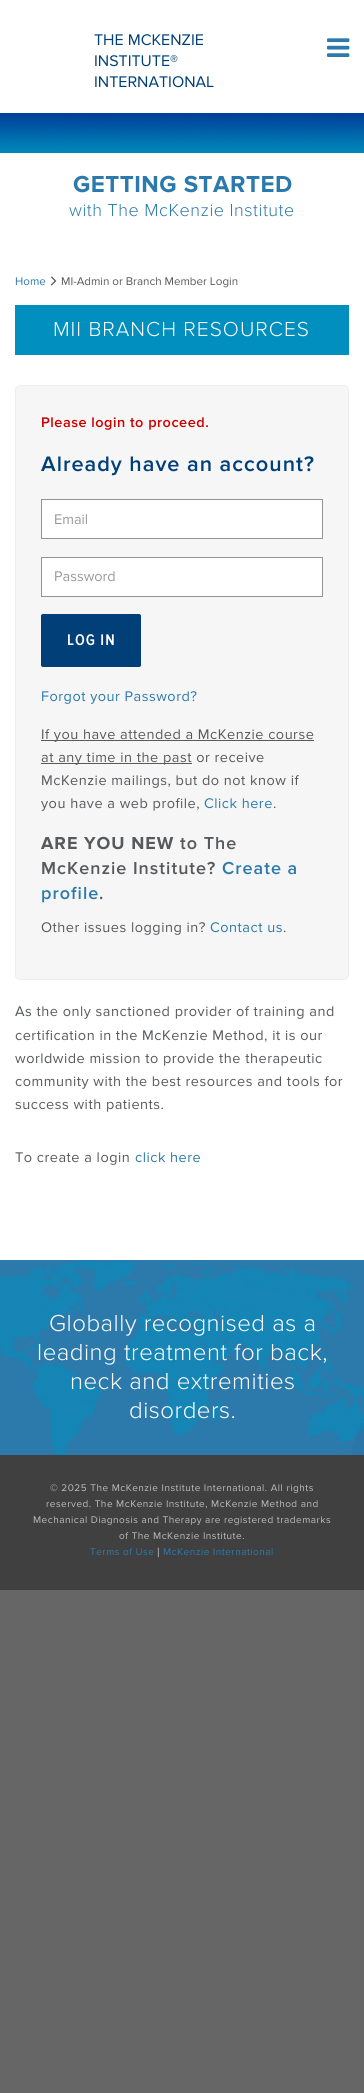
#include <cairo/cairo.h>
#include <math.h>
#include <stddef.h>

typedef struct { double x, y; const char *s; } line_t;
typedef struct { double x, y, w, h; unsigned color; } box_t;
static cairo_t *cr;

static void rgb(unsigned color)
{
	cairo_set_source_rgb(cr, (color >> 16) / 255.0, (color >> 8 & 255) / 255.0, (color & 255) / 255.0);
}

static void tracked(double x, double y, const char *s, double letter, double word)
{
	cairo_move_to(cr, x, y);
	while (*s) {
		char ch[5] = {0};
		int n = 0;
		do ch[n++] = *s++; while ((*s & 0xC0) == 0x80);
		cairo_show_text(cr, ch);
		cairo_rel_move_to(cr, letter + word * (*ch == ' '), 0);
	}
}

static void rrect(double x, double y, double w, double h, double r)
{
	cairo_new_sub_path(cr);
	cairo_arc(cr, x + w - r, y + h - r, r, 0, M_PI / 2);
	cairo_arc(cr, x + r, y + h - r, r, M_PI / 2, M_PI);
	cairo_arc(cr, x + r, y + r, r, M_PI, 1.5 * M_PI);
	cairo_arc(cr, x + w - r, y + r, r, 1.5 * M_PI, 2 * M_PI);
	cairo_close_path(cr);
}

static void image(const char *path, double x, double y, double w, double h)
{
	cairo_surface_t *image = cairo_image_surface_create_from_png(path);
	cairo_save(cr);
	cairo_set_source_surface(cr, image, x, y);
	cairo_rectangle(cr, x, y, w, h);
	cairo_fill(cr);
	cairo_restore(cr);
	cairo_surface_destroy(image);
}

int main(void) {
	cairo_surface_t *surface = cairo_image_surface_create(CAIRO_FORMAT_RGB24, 364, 2093);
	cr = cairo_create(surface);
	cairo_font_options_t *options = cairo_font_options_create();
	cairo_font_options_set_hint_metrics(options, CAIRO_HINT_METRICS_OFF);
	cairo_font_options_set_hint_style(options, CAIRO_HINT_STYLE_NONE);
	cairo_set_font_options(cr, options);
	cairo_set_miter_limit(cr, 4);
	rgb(0x666666);
	cairo_paint(cr);
	rgb(0xffffff);
	cairo_rectangle(cr, 0, 0, 364, 113);
	cairo_fill(cr);
	image("img/1.png", 327, 38, 23, 19);
	cairo_rectangle(cr, 0, 153, 364, 1107);
	cairo_fill(cr);
	image("img/2.png", 0, 113, 364, 40);
	image("img/3.png", 50, 276, 7, 10);
	rgb(0x008fbe);
	cairo_rectangle(cr, 15, 305, 334, 50);
	cairo_fill(cr);
	rgb(0xf6f6f7);
	rrect(15.5, 385.5, 333, 594, 4.5);
	cairo_fill_preserve(cr);
	rgb(0xedeeef);
	cairo_set_line_width(cr, 1);
	cairo_stroke(cr);
	rgb(0xffffff);
	cairo_rectangle(cr, 41.5, 499.5, 281, 39);
	cairo_fill_preserve(cr);
	rgb(0x929497);
	cairo_stroke(cr);
	rgb(0xffffff);
	cairo_rectangle(cr, 41.5, 557.5, 281, 39);
	cairo_fill_preserve(cr);
	rgb(0x929497);
	cairo_stroke(cr);
	rgb(0x003f77);
	rrect(41.5, 614.5, 99, 52, 1.5);
	cairo_fill_preserve(cr);
	cairo_stroke(cr);
	{
		static const box_t items[] = {
			{41, 740, 273, 1, 0x58595b},
			{41, 763, 151, 1, 0x58595b},
			{0, 1455, 364, 135, 0x404041},
		};
		for (size_t i = 0; i < sizeof items / sizeof *items; i++) {
			rgb(items[i].color);
			cairo_rectangle(cr, items[i].x, items[i].y, items[i].w, items[i].h);
			cairo_fill(cr);
		}
	}
	image("img/4.png", 0, 1260, 364, 195);
	cairo_select_font_face(cr, "Proxima Nova", CAIRO_FONT_SLANT_NORMAL, CAIRO_FONT_WEIGHT_NORMAL);
	cairo_set_font_size(cr, 16);
	rgb(0x003f77);
	{
		static const line_t items[] = {
			{94, 45, "THE MCKENZIE"},
			{94, 66, "INSTITUTE®"},
			{94, 87, "INTERNATIONAL"},
		};
		for (size_t i = 0; i < sizeof items / sizeof *items; i++) {
			cairo_move_to(cr, items[i].x, items[i].y);
			cairo_show_text(cr, items[i].s);
		}
	}
	cairo_select_font_face(cr, "Proxima Nova", CAIRO_FONT_SLANT_NORMAL, CAIRO_FONT_WEIGHT_BOLD);
	cairo_set_font_size(cr, 24);
	rgb(0x2c7aab);
	tracked(73, 192, "GETTING STARTED", 0.5, 0);
	cairo_select_font_face(cr, "Proxima Nova Light", CAIRO_FONT_SLANT_NORMAL, CAIRO_FONT_WEIGHT_NORMAL);
	cairo_set_font_size(cr, 18);
	tracked(69, 216, "with The McKenzie Institute", 0.5, 0);
	cairo_select_font_face(cr, "Proxima Nova", CAIRO_FONT_SLANT_NORMAL, CAIRO_FONT_WEIGHT_NORMAL);
	cairo_set_font_size(cr, 11.6);
	cairo_move_to(cr, 15, 285);
	cairo_show_text(cr, "Home");
	rgb(0x58595b);
	cairo_move_to(cr, 61, 285);
	cairo_show_text(cr, "MI-Admin or Branch Member Login");
	cairo_select_font_face(cr, "Proxima Nova Light", CAIRO_FONT_SLANT_NORMAL, CAIRO_FONT_WEIGHT_NORMAL);
	cairo_set_font_size(cr, 21);
	rgb(0xffffff);
	tracked(53, 336, "MII BRANCH RESOURCES", 1, 0);
	cairo_select_font_face(cr, "Proxima Nova SemiBold", CAIRO_FONT_SLANT_NORMAL, CAIRO_FONT_WEIGHT_NORMAL);
	cairo_set_font_size(cr, 14.5);
	rgb(0xcc0000);
	tracked(41, 427, "Please login to proceed.", 0.5, 0);
	cairo_set_font_size(cr, 21.75);
	rgb(0x003f77);
	tracked(41, 471, "Already have an account?", 1, 0);
	cairo_select_font_face(cr, "Proxima Nova", CAIRO_FONT_SLANT_NORMAL, CAIRO_FONT_WEIGHT_NORMAL);
	cairo_set_font_size(cr, 14.5);
	rgb(0x999999);
	cairo_move_to(cr, 54, 524);
	cairo_show_text(cr, "Email");
	cairo_move_to(cr, 54, 581);
	cairo_show_text(cr, "Password");
	cairo_select_font_face(cr, "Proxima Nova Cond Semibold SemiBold", CAIRO_FONT_SLANT_NORMAL, CAIRO_FONT_WEIGHT_NORMAL);
	cairo_set_font_size(cr, 16);
	rgb(0xffffff);
	tracked(67, 645, "LOG IN", 1, 0);
	cairo_select_font_face(cr, "Proxima Nova", CAIRO_FONT_SLANT_NORMAL, CAIRO_FONT_WEIGHT_NORMAL);
	cairo_set_font_size(cr, 14.5);
	rgb(0x2c7aab);
	tracked(41, 701, "Forgot your Password?", 0.5, 0);
	rgb(0x58595b);
	{
		static const line_t items[] = {
			{41, 739, "If you have attended a McKenzie course"},
			{41, 762, "at any time in the past or receive"},
			{41, 785, "McKenzie mailings, but do not know if"},
			{41, 808, "you have a web profile,"},
		};
		for (size_t i = 0; i < sizeof items / sizeof *items; i++) {
			tracked(items[i].x, items[i].y, items[i].s, 0.5, 0);
		}
	}
	rgb(0x2c7aab);
	tracked(204, 808, "Click here", 0.5, 0);
	rgb(0x58595b);
	tracked(273, 808, ".", 0.5, 0);
	cairo_select_font_face(cr, "Proxima Nova", CAIRO_FONT_SLANT_NORMAL, CAIRO_FONT_WEIGHT_BOLD);
	cairo_set_font_size(cr, 18);
	tracked(41, 849, "ARE YOU NEW", 1, 0);
	cairo_select_font_face(cr, "Proxima Nova SemiBold", CAIRO_FONT_SLANT_NORMAL, CAIRO_FONT_WEIGHT_NORMAL);
	tracked(180, 849, "to The", 1, 0);
	tracked(41, 874, "McKenzie Institute?", 1, 0);
	rgb(0x2c7aab);
	tracked(222, 874, "Create a", 1, 0);
	tracked(41, 899, "profile", 1, 0);
	rgb(0x58595b);
	tracked(99, 899, ".", 1, 0);
	cairo_select_font_face(cr, "Proxima Nova", CAIRO_FONT_SLANT_NORMAL, CAIRO_FONT_WEIGHT_NORMAL);
	cairo_set_font_size(cr, 14.5);
	tracked(41, 932, "Other issues logging in?", 0.5, 0);
	rgb(0x2c7aab);
	tracked(210, 932, "Contact us", 0.5, 0);
	rgb(0x58595b);
	{
		static const line_t items[] = {
			{283, 932, "."},
			{15, 1016, "As the only sanctioned provider of training and"},
			{15, 1040, "certification in the McKenzie Method, it is our"},
			{15, 1063, "worldwide mission to provide the therapeutic"},
			{15, 1086, "community with the best resources and tools for"},
			{15, 1109, "success with patients."},
			{15, 1162, "To create a login"},
		};
		for (size_t i = 0; i < sizeof items / sizeof *items; i++) {
			tracked(items[i].x, items[i].y, items[i].s, 0.5, 0);
		}
	}
	rgb(0x2c7aab);
	tracked(135, 1162, "click here", 0.5, 0);
	cairo_select_font_face(cr, "Proxima Nova Light", CAIRO_FONT_SLANT_NORMAL, CAIRO_FONT_WEIGHT_NORMAL);
	cairo_set_font_size(cr, 24);
	rgb(0xffffff);
	{
		static const line_t items[] = {
			{49, 1331, "Globally recognised as a"},
			{37, 1360, "leading treatment for back,"},
			{70, 1389, "neck and extremities"},
			{129, 1418, "disorders."},
		};
		for (size_t i = 0; i < sizeof items / sizeof *items; i++) {
			tracked(items[i].x, items[i].y, items[i].s, 0.5, 0);
		}
	}
	cairo_select_font_face(cr, "Proxima Nova", CAIRO_FONT_SLANT_NORMAL, CAIRO_FONT_WEIGHT_NORMAL);
	cairo_set_font_size(cr, 10);
	rgb(0xbbbcbe);
	{
		static const line_t items[] = {
			{50, 1491, "© 2025 The McKenzie Institute International. All rights"},
			{46, 1507, "reserved. The McKenzie Institute, McKenzie Method and"},
			{33, 1523, "Mechanical Diagnosis and Therapy are registered trademarks"},
			{119, 1539, "of The McKenzie Institute."},
		};
		for (size_t i = 0; i < sizeof items / sizeof *items; i++) {
			tracked(items[i].x, items[i].y, items[i].s, 0.5, 0);
		}
	}
	rgb(0x2c7aab);
	tracked(90, 1555, "Terms of Use", 0.5, 0);
	cairo_select_font_face(cr, "Liberation Sans", CAIRO_FONT_SLANT_NORMAL, CAIRO_FONT_WEIGHT_NORMAL);
	rgb(0xbbbcbe);
	tracked(157, 1555, "|", 0.5, 0);
	cairo_select_font_face(cr, "Proxima Nova", CAIRO_FONT_SLANT_NORMAL, CAIRO_FONT_WEIGHT_NORMAL);
	rgb(0x2c7aab);
	tracked(163, 1555, "McKenzie International", 0.5, 0);
	cairo_surface_write_to_png(surface, "page.png");
	cairo_font_options_destroy(options);
	cairo_destroy(cr);
	cairo_surface_destroy(surface);
	return 0;
}
